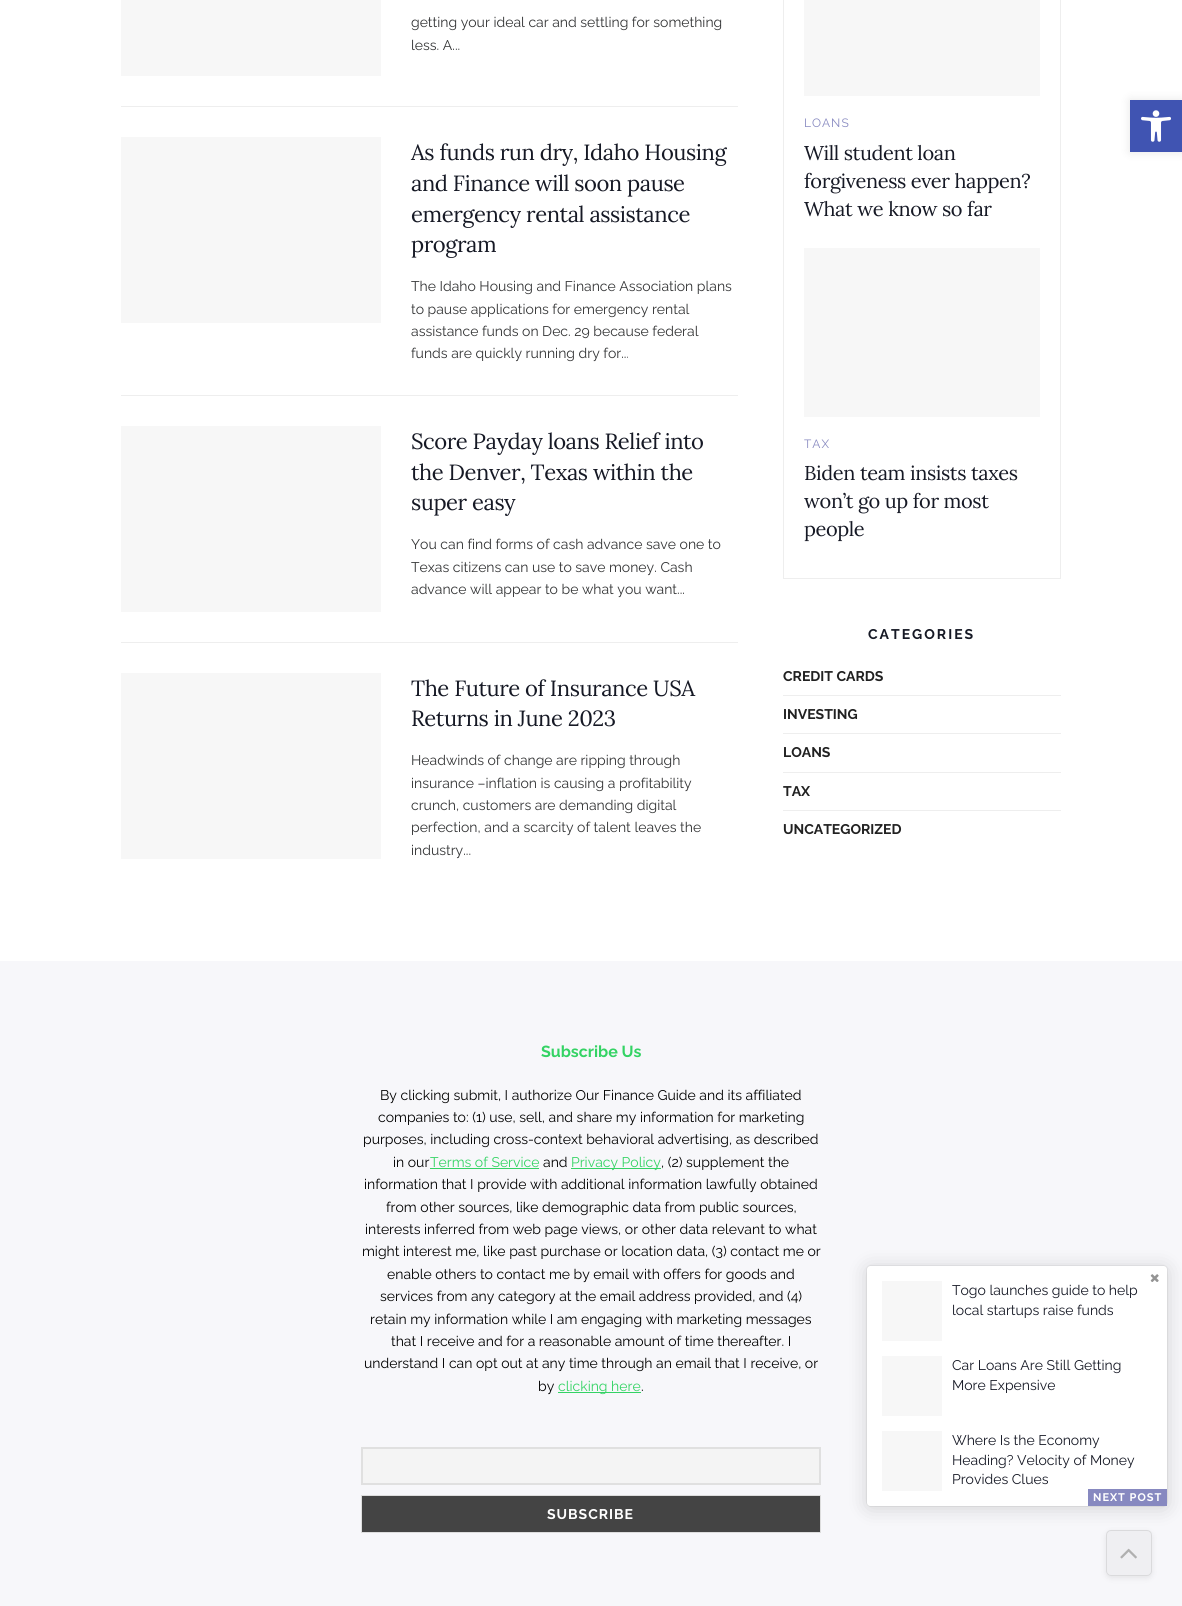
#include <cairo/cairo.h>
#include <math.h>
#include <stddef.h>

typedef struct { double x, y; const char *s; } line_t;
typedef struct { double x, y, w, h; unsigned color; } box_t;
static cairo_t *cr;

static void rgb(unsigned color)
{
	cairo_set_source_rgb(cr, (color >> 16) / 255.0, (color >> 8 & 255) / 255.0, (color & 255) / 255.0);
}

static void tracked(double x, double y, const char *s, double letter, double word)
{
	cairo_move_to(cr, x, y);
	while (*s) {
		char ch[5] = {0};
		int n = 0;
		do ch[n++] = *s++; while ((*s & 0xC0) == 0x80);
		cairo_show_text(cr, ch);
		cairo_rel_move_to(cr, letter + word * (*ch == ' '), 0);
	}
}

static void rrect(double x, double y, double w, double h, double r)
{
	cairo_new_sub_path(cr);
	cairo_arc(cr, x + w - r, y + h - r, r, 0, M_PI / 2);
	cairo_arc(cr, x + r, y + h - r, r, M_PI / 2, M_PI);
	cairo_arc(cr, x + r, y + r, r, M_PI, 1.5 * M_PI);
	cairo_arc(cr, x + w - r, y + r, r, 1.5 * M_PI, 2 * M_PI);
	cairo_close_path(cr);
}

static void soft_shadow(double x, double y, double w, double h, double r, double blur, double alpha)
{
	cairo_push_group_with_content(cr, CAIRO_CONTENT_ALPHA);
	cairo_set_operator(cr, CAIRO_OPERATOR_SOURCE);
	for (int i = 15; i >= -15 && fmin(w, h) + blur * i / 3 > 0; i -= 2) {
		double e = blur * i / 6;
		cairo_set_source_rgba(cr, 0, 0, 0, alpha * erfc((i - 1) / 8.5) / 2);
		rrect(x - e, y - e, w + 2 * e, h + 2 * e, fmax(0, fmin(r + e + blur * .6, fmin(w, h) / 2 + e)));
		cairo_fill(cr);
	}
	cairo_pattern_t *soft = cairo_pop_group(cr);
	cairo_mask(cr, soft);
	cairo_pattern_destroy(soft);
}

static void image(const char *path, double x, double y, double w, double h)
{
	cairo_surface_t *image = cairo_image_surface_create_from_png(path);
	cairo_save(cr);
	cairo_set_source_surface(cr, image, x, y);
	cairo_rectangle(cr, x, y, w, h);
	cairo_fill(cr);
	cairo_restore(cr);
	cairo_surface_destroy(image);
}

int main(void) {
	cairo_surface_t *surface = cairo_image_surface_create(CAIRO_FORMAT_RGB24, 1182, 1606);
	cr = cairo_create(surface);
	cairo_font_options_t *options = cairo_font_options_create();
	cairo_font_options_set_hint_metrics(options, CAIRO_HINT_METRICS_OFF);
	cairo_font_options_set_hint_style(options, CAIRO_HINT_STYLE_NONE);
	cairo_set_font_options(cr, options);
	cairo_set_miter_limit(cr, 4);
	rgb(0xffffff);
	cairo_paint(cr);
	{
		static const box_t items[] = {
			{121, 0, 260, 76, 0xf7f7f7},
			{121, 106, 617, 1, 0xeeeeee},
			{121, 137, 260, 186, 0xf7f7f7},
			{121, 395, 617, 1, 0xeeeeee},
			{121, 426, 260, 186, 0xf7f7f7},
			{121, 642, 617, 1, 0xeeeeee},
			{121, 673, 260, 186, 0xf7f7f7},
			{0, 961, 1182, 645, 0xf7f7fa},
		};
		for (size_t i = 0; i < sizeof items / sizeof *items; i++) {
			rgb(items[i].color);
			cairo_rectangle(cr, items[i].x, items[i].y, items[i].w, items[i].h);
			cairo_fill(cr);
		}
	}
	rgb(0x000000);
	soft_shadow(867, 1268, 300, 240, 3, 10, 0.15);
	soft_shadow(867, 1266, 300, 240, 3, 0.5, 0.2);
	rgb(0xffffff);
	rrect(867, 1266, 300, 240, 3);
	cairo_fill(cr);
	image("img/1.png", 1150, 1274, 9, 8);
	{
		static const box_t items[] = {
			{882, 1281, 60, 60, 0xf7f7f7},
			{882, 1356, 60, 60, 0xf7f7f7},
			{882, 1431, 60, 60, 0xf7f7f7},
			{1088, 1489, 79, 17, 0x8789c0},
		};
		for (size_t i = 0; i < sizeof items / sizeof *items; i++) {
			rgb(items[i].color);
			cairo_rectangle(cr, items[i].x, items[i].y, items[i].w, items[i].h);
			cairo_fill(cr);
		}
	}
	cairo_rectangle(cr, 783.5, -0.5, 277, 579);
	rgb(0xeeeeee);
	cairo_set_line_width(cr, 1);
	cairo_stroke(cr);
	{
		static const box_t items[] = {
			{804, 0, 236, 96, 0xf7f7f7},
			{804, 248, 236, 169, 0xf7f7f7},
			{783, 695, 278, 1, 0xeeeeee},
			{783, 733, 278, 1, 0xeeeeee},
			{783, 772, 278, 1, 0xeeeeee},
			{783, 810, 278, 1, 0xeeeeee},
			{430, 1168, 109, 1, 0x34d364},
			{571, 1168, 90, 1, 0x34d364},
			{558, 1392, 83, 1, 0x34d364},
		};
		for (size_t i = 0; i < sizeof items / sizeof *items; i++) {
			rgb(items[i].color);
			cairo_rectangle(cr, items[i].x, items[i].y, items[i].w, items[i].h);
			cairo_fill(cr);
		}
	}
	rgb(0xf4f4f4);
	cairo_rectangle(cr, 362, 1448, 458, 36);
	cairo_fill_preserve(cr);
	rgb(0xe0e0e0);
	cairo_set_line_width(cr, 2);
	cairo_stroke(cr);
	rgb(0x444444);
	cairo_rectangle(cr, 361.5, 1495.5, 459, 37);
	cairo_fill_preserve(cr);
	rgb(0xdddddd);
	cairo_set_line_width(cr, 1);
	cairo_stroke(cr);
	cairo_save(cr);
	cairo_set_fill_rule(cr, CAIRO_FILL_RULE_EVEN_ODD);
	cairo_new_path(cr);
	cairo_move_to(cr, 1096, 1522);
	cairo_line_to(cr, 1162, 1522);
	cairo_line_to(cr, 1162, 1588);
	cairo_line_to(cr, 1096, 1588);
	cairo_close_path(cr);
	cairo_move_to(cr, 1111, 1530);
	cairo_line_to(cr, 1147, 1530);
	cairo_curve_to(cr, 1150, 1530, 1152, 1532, 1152, 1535);
	cairo_line_to(cr, 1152, 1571);
	cairo_curve_to(cr, 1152, 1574, 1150, 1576, 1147, 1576);
	cairo_line_to(cr, 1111, 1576);
	cairo_curve_to(cr, 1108, 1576, 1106, 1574, 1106, 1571);
	cairo_line_to(cr, 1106, 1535);
	cairo_curve_to(cr, 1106, 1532, 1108, 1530, 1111, 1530);
	cairo_close_path(cr);
	cairo_clip(cr);
	rgb(0x313132);
	soft_shadow(1106, 1532, 46, 46, 5, 3, 0.1);
	cairo_restore(cr);
	cairo_set_source_rgba(cr, 0.761, 0.761, 0.765, 0.15);
	rrect(1106, 1530, 46, 46, 5);
	cairo_fill(cr);
	rrect(1106.5, 1530.5, 45, 45, 4.5);
	cairo_set_source_rgba(cr, 0.192, 0.192, 0.196, 0.11);
	cairo_stroke(cr);
	image("img/2.png", 1120, 1548, 17, 11);
	rgb(0x000000);
	soft_shadow(1130, 100, 52, 52, 0, 5, 0.1);
	rgb(0x4054b2);
	cairo_rectangle(cr, 1130, 100, 52, 52);
	cairo_fill(cr);
	image("img/3.png", 1141, 110, 30, 32);
	cairo_select_font_face(cr, "Raleway", CAIRO_FONT_SLANT_NORMAL, CAIRO_FONT_WEIGHT_NORMAL);
	cairo_set_font_size(cr, 14);
	rgb(0x343536);
	cairo_move_to(cr, 411, 27);
	cairo_show_text(cr, "getting your ideal car and settling for something");
	cairo_move_to(cr, 411, 50);
	cairo_show_text(cr, "less. A...");
	cairo_select_font_face(cr, "Lora", CAIRO_FONT_SLANT_NORMAL, CAIRO_FONT_WEIGHT_NORMAL);
	cairo_set_font_size(cr, 22);
	rgb(0x161925);
	{
		static const line_t items[] = {
			{411, 160, "As funds run dry, Idaho Housing"},
			{411, 191, "and Finance will soon pause"},
			{411, 222, "emergency rental assistance"},
			{411, 252, "program"},
		};
		for (size_t i = 0; i < sizeof items / sizeof *items; i++) {
			tracked(items[i].x, items[i].y, items[i].s, -0.45, 0);
		}
	}
	cairo_select_font_face(cr, "Raleway", CAIRO_FONT_SLANT_NORMAL, CAIRO_FONT_WEIGHT_NORMAL);
	cairo_set_font_size(cr, 14);
	rgb(0x343536);
	{
		static const line_t items[] = {
			{411, 291, "The Idaho Housing and Finance Association plans"},
			{411, 314, "to pause applications for emergency rental"},
			{411, 336, "assistance funds on Dec. 29 because federal"},
			{411, 358, "funds are quickly running dry for..."},
		};
		for (size_t i = 0; i < sizeof items / sizeof *items; i++) {
			cairo_move_to(cr, items[i].x, items[i].y);
			cairo_show_text(cr, items[i].s);
		}
	}
	cairo_select_font_face(cr, "Lora", CAIRO_FONT_SLANT_NORMAL, CAIRO_FONT_WEIGHT_NORMAL);
	cairo_set_font_size(cr, 22);
	rgb(0x161925);
	{
		static const line_t items[] = {
			{411, 449, "Score Payday loans Relief into"},
			{411, 480, "the Denver, Texas within the"},
			{411, 510, "super easy"},
		};
		for (size_t i = 0; i < sizeof items / sizeof *items; i++) {
			tracked(items[i].x, items[i].y, items[i].s, -0.45, 0);
		}
	}
	cairo_select_font_face(cr, "Raleway", CAIRO_FONT_SLANT_NORMAL, CAIRO_FONT_WEIGHT_NORMAL);
	cairo_set_font_size(cr, 14);
	rgb(0x343536);
	{
		static const line_t items[] = {
			{411, 549, "You can find forms of cash advance save one to"},
			{411, 572, "Texas citizens can use to save money. Cash"},
			{411, 594, "advance will appear to be what you want..."},
		};
		for (size_t i = 0; i < sizeof items / sizeof *items; i++) {
			cairo_move_to(cr, items[i].x, items[i].y);
			cairo_show_text(cr, items[i].s);
		}
	}
	cairo_select_font_face(cr, "Lora", CAIRO_FONT_SLANT_NORMAL, CAIRO_FONT_WEIGHT_NORMAL);
	cairo_set_font_size(cr, 22);
	rgb(0x161925);
	tracked(411, 696, "The Future of Insurance USA", -0.45, 0);
	tracked(411, 726, "Returns in June 2023", -0.45, 0);
	cairo_select_font_face(cr, "Raleway", CAIRO_FONT_SLANT_NORMAL, CAIRO_FONT_WEIGHT_NORMAL);
	cairo_set_font_size(cr, 14);
	rgb(0x343536);
	{
		static const line_t items[] = {
			{411, 765, "Headwinds of change are ripping through"},
			{411, 788, "insurance –inflation is causing a profitability"},
			{411, 810, "crunch, customers are demanding digital"},
			{411, 832, "perfection, and a scarcity of talent leaves the"},
			{411, 855, "industry..."},
		};
		for (size_t i = 0; i < sizeof items / sizeof *items; i++) {
			cairo_move_to(cr, items[i].x, items[i].y);
			cairo_show_text(cr, items[i].s);
		}
	}
	rgb(0x161925);
	{
		static const line_t items[] = {
			{952, 1295, "Togo launches guide to help"},
			{952, 1315, "local startups raise funds"},
			{952, 1370, "Car Loans Are Still Getting"},
			{952, 1390, "More Expensive"},
			{952, 1445, "Where Is the Economy"},
			{952, 1465, "Heading? Velocity of Money"},
			{952, 1484, "Provides Clues"},
		};
		for (size_t i = 0; i < sizeof items / sizeof *items; i++) {
			cairo_move_to(cr, items[i].x, items[i].y);
			cairo_show_text(cr, items[i].s);
		}
	}
	cairo_select_font_face(cr, "Raleway", CAIRO_FONT_SLANT_NORMAL, CAIRO_FONT_WEIGHT_BOLD);
	cairo_set_font_size(cr, 11);
	rgb(0xffffff);
	tracked(1093, 1501, "NEXT POST", 1, 0);
	cairo_select_font_face(cr, "Raleway", CAIRO_FONT_SLANT_NORMAL, CAIRO_FONT_WEIGHT_NORMAL);
	cairo_set_font_size(cr, 12);
	rgb(0x8789c0);
	tracked(804, 127, "LOANS", 1, 0);
	cairo_select_font_face(cr, "Lora", CAIRO_FONT_SLANT_NORMAL, CAIRO_FONT_WEIGHT_NORMAL);
	cairo_set_font_size(cr, 20);
	rgb(0x161925);
	{
		static const line_t items[] = {
			{804, 160, "Will student loan"},
			{804, 188, "forgiveness ever happen?"},
			{804, 216, "What we know so far"},
		};
		for (size_t i = 0; i < sizeof items / sizeof *items; i++) {
			tracked(items[i].x, items[i].y, items[i].s, -0.4, 0);
		}
	}
	cairo_select_font_face(cr, "Raleway", CAIRO_FONT_SLANT_NORMAL, CAIRO_FONT_WEIGHT_NORMAL);
	cairo_set_font_size(cr, 12);
	rgb(0x8789c0);
	tracked(804, 448, "TAX", 1, 0);
	cairo_select_font_face(cr, "Lora", CAIRO_FONT_SLANT_NORMAL, CAIRO_FONT_WEIGHT_NORMAL);
	cairo_set_font_size(cr, 20);
	rgb(0x161925);
	{
		static const line_t items[] = {
			{804, 480, "Biden team insists taxes"},
			{804, 508, "won’t go up for most"},
			{804, 536, "people"},
		};
		for (size_t i = 0; i < sizeof items / sizeof *items; i++) {
			tracked(items[i].x, items[i].y, items[i].s, -0.4, 0);
		}
	}
	cairo_select_font_face(cr, "Raleway", CAIRO_FONT_SLANT_NORMAL, CAIRO_FONT_WEIGHT_BOLD);
	cairo_set_font_size(cr, 14);
	tracked(868, 639, "CATEGORIES", 2, 0);
	rgb(0x212121);
	{
		static const line_t items[] = {
			{783, 681, "CREDIT CARDS"},
			{783, 719, "INVESTING"},
			{783, 757, "LOANS"},
			{783, 796, "TAX"},
			{783, 834, "UNCATEGORIZED"},
		};
		for (size_t i = 0; i < sizeof items / sizeof *items; i++) {
			cairo_move_to(cr, items[i].x, items[i].y);
			cairo_show_text(cr, items[i].s);
		}
	}
	cairo_set_font_size(cr, 16);
	rgb(0x34d364);
	cairo_move_to(cr, 541, 1057);
	cairo_show_text(cr, "Subscribe Us");
	cairo_select_font_face(cr, "Raleway", CAIRO_FONT_SLANT_NORMAL, CAIRO_FONT_WEIGHT_NORMAL);
	cairo_set_font_size(cr, 14);
	rgb(0x000000);
	{
		static const line_t items[] = {
			{380, 1100, "By clicking submit, I authorize Our Finance Guide and its affiliated"},
			{378, 1122, "companies to: (1) use, sell, and share my information for marketing"},
			{363, 1144, "purposes, including cross-context behavioral advertising, as described"},
			{393, 1167, "in our"},
		};
		for (size_t i = 0; i < sizeof items / sizeof *items; i++) {
			cairo_move_to(cr, items[i].x, items[i].y);
			cairo_show_text(cr, items[i].s);
		}
	}
	rgb(0x34d364);
	cairo_move_to(cr, 430, 1167);
	cairo_show_text(cr, "Terms of Service");
	rgb(0x000000);
	cairo_move_to(cr, 543, 1167);
	cairo_show_text(cr, "and");
	rgb(0x34d364);
	cairo_move_to(cr, 571, 1167);
	cairo_show_text(cr, "Privacy Policy");
	rgb(0x000000);
	{
		static const line_t items[] = {
			{661, 1167, ", (2) supplement the"},
			{364, 1189, "information that I provide with additional information lawfully obtained"},
			{386, 1212, "from other sources, like demographic data from public sources,"},
			{365, 1234, "interests inferred from web page views, or other data relevant to what"},
			{362, 1256, "might interest me, like past purchase or location data, (3) contact me or"},
			{387, 1279, "enable others to contact me by email with offers for goods and"},
			{380, 1301, "services from any category at the email address provided, and (4)"},
			{370, 1324, "retain my information while I am engaging with marketing messages"},
			{391, 1346, "that I receive and for a reasonable amount of time thereafter. I"},
			{364, 1368, "understand I can opt out at any time through an email that I receive, or"},
			{538, 1391, "by"},
		};
		for (size_t i = 0; i < sizeof items / sizeof *items; i++) {
			cairo_move_to(cr, items[i].x, items[i].y);
			cairo_show_text(cr, items[i].s);
		}
	}
	rgb(0x34d364);
	cairo_move_to(cr, 558, 1391);
	cairo_show_text(cr, "clicking here");
	rgb(0x000000);
	cairo_move_to(cr, 641, 1391);
	cairo_show_text(cr, ".");
	cairo_select_font_face(cr, "Raleway", CAIRO_FONT_SLANT_NORMAL, CAIRO_FONT_WEIGHT_BOLD);
	rgb(0xffffff);
	tracked(547, 1519, "SUBSCRIBE", 1, 0);
	cairo_surface_write_to_png(surface, "page.png");
	cairo_font_options_destroy(options);
	cairo_destroy(cr);
	cairo_surface_destroy(surface);
	return 0;
}
